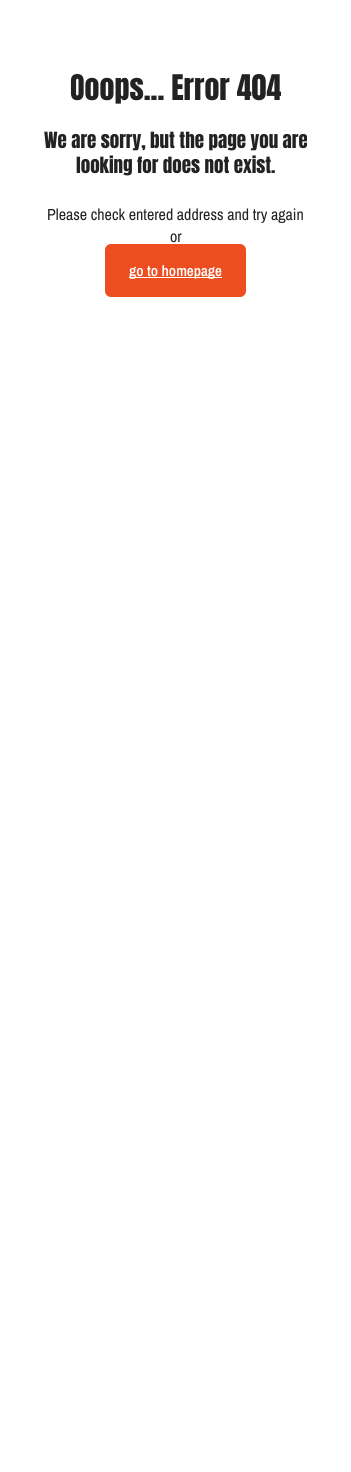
#include <cairo/cairo.h>
#include <math.h>
#include <stddef.h>

static cairo_t *cr;

static void rgb(unsigned color)
{
	cairo_set_source_rgb(cr, (color >> 16) / 255.0, (color >> 8 & 255) / 255.0, (color & 255) / 255.0);
}

static void rrect(double x, double y, double w, double h, double r)
{
	cairo_new_sub_path(cr);
	cairo_arc(cr, x + w - r, y + h - r, r, 0, M_PI / 2);
	cairo_arc(cr, x + r, y + h - r, r, M_PI / 2, M_PI);
	cairo_arc(cr, x + r, y + r, r, M_PI, 1.5 * M_PI);
	cairo_arc(cr, x + w - r, y + r, r, 1.5 * M_PI, 2 * M_PI);
	cairo_close_path(cr);
}

int main(void) {
	cairo_surface_t *surface = cairo_image_surface_create(CAIRO_FORMAT_RGB24, 351, 1472);
	cr = cairo_create(surface);
	cairo_font_options_t *options = cairo_font_options_create();
	cairo_font_options_set_hint_metrics(options, CAIRO_HINT_METRICS_OFF);
	cairo_font_options_set_hint_style(options, CAIRO_HINT_STYLE_NONE);
	cairo_set_font_options(cr, options);
	cairo_set_miter_limit(cr, 4);
	rgb(0xffffff);
	cairo_paint(cr);
	rgb(0xec4e20);
	rrect(105, 244, 141, 53, 6);
	cairo_fill(cr);
	rgb(0xffffff);
	cairo_rectangle(cr, 129, 277, 93, 1);
	cairo_fill(cr);
	cairo_select_font_face(cr, "Anton", CAIRO_FONT_SLANT_NORMAL, CAIRO_FONT_WEIGHT_NORMAL);
	cairo_set_font_size(cr, 30);
	rgb(0x222222);
	cairo_move_to(cr, 70, 100);
	cairo_show_text(cr, "Ooops... Error 404");
	cairo_set_font_size(cr, 19);
	cairo_move_to(cr, 44, 148);
	cairo_show_text(cr, "We are sorry, but the page you are");
	cairo_move_to(cr, 76, 173);
	cairo_show_text(cr, "looking for does not exist.");
	cairo_select_font_face(cr, "Archivo Narrow", CAIRO_FONT_SLANT_NORMAL, CAIRO_FONT_WEIGHT_NORMAL);
	cairo_set_font_size(cr, 16);
	cairo_move_to(cr, 47, 220);
	cairo_show_text(cr, "Please check entered address and try again");
	cairo_move_to(cr, 170, 242);
	cairo_show_text(cr, "or");
	cairo_select_font_face(cr, "Archivo Narrow SemiBold", CAIRO_FONT_SLANT_NORMAL, CAIRO_FONT_WEIGHT_NORMAL);
	cairo_set_font_size(cr, 15);
	rgb(0xffffff);
	cairo_move_to(cr, 129, 276);
	cairo_show_text(cr, "go to homepage");
	cairo_surface_write_to_png(surface, "page.png");
	cairo_font_options_destroy(options);
	cairo_destroy(cr);
	cairo_surface_destroy(surface);
	return 0;
}
